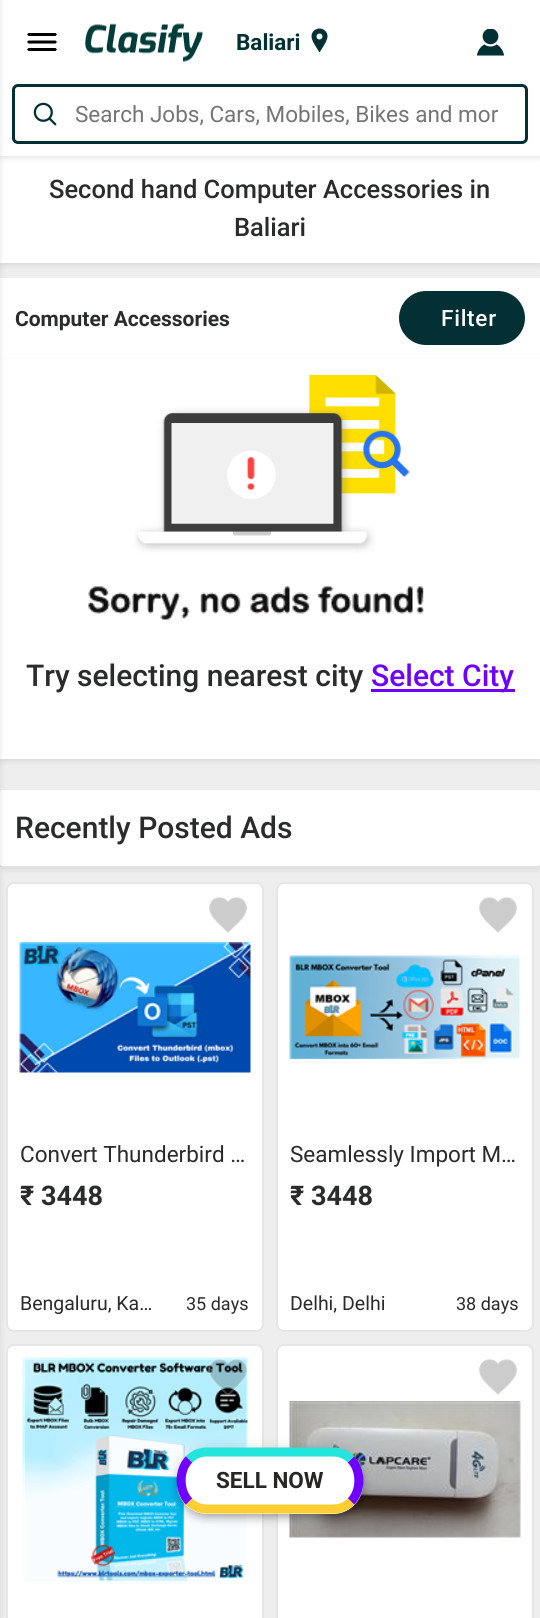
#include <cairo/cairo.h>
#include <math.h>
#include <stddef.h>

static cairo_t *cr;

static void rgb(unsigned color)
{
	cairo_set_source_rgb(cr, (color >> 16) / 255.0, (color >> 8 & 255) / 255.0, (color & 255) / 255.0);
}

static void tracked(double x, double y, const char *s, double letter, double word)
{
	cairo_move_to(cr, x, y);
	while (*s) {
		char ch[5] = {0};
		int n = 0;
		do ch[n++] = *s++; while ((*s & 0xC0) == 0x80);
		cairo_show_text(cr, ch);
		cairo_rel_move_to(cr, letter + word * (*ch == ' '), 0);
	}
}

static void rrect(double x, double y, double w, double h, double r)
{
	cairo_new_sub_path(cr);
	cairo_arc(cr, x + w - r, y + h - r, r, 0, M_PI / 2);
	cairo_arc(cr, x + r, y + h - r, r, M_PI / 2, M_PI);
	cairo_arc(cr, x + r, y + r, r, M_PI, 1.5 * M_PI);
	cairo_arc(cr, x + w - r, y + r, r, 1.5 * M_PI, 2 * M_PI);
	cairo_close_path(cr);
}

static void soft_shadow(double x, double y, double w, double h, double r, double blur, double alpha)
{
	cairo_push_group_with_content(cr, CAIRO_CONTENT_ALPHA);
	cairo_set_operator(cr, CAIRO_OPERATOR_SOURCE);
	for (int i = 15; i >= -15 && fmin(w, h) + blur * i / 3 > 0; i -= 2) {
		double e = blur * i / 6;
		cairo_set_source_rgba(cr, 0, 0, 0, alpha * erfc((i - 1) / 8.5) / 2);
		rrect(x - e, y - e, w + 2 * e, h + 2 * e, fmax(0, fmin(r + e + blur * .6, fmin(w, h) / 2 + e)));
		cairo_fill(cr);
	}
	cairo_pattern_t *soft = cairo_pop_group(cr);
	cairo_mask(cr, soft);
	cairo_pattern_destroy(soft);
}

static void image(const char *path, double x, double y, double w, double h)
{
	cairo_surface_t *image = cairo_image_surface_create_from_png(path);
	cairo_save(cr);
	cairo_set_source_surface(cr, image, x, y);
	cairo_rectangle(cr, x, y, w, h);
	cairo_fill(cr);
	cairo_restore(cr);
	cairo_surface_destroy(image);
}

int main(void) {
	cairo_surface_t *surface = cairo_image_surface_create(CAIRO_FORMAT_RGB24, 540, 1618);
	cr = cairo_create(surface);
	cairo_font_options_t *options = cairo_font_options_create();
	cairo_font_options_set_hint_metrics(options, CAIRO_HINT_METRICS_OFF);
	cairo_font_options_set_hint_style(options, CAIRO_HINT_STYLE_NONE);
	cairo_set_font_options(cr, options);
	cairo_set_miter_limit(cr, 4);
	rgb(0xeeeeee);
	cairo_paint(cr);
	rgb(0x000000);
	soft_shadow(0, 159, 540, 107, 0, 3, 0.08);
	rgb(0xffffff);
	cairo_rectangle(cr, 0, 156, 540, 107);
	cairo_fill(cr);
	rgb(0x000000);
	soft_shadow(0, 2, 540, 156, 0, 3, 0.1);
	rgb(0xffffff);
	cairo_rectangle(cr, 0, 0, 540, 156);
	cairo_fill(cr);
	cairo_rectangle(cr, 0, 278, 540, 81);
	cairo_fill(cr);
	rgb(0x000000);
	soft_shadow(0, 362, 540, 400, 0, 3, 0.08);
	rgb(0xffffff);
	cairo_rectangle(cr, 0, 359, 540, 400);
	cairo_fill(cr);
	rgb(0x000000);
	soft_shadow(0, 792, 540, 78, 3, 3, 0.08);
	rgb(0xffffff);
	rrect(0, 789, 540, 78, 3);
	cairo_fill(cr);
	rgb(0xeaeaea);
	cairo_new_path(cr);
	cairo_move_to(cr, 3, 789);
	cairo_curve_to(cr, 1, 789, 0, 790, 0, 792);
	cairo_curve_to(cr, 0, 791, 1, 790, 3, 790);
	cairo_line_to(cr, 537, 790);
	cairo_curve_to(cr, 539, 790, 540, 791, 540, 792);
	cairo_curve_to(cr, 540, 790, 539, 789, 537, 789);
	cairo_close_path(cr);
	cairo_fill(cr);
	cairo_set_source_rgba(cr, 0, 0, 0, 0.1);
	cairo_new_path(cr);
	cairo_move_to(cr, 537, 867);
	cairo_curve_to(cr, 539, 867, 540, 866, 540, 864);
	cairo_curve_to(cr, 540, 865, 539, 866, 537, 866);
	cairo_line_to(cr, 3, 866);
	cairo_curve_to(cr, 1, 866, 0, 865, 0, 864);
	cairo_curve_to(cr, 0, 866, 1, 867, 3, 867);
	cairo_close_path(cr);
	cairo_fill(cr);
	rgb(0xffffff);
	rrect(6, 882, 258, 450, 8);
	cairo_fill(cr);
	rrect(7, 883, 256, 448, 7);
	cairo_set_source_rgba(cr, 0, 0, 0, 0.1);
	cairo_stroke(cr);
	rgb(0xffffff);
	rrect(6, 1344, 258, 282, 8);
	cairo_fill(cr);
	rrect(7, 1345, 256, 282, 7);
	cairo_set_source_rgba(cr, 0, 0, 0, 0.1);
	cairo_stroke(cr);
	rgb(0x000000);
	soft_shadow(-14, 0, 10, 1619, 0, 4.5, 0.3);
	image("img/1.png", 27, 33, 30, 18);
	image("img/2.png", 85, 23, 118, 39);
	image("img/3.png", 311, 28, 17, 25);
	image("img/4.png", 477, 29, 27, 27);
	rrect(13.5, 85.5, 513, 57, 4.5);
	rgb(0x023035);
	cairo_set_line_width(cr, 3);
	cairo_stroke(cr);
	image("img/5.png", 33, 102, 24, 24);
	rrect(399, 291, 126, 54, 27);
	cairo_fill(cr);
	image("img/6.png", 134, 375, 276, 178);
	image("img/7.png", 88, 586, 336, 34);
	rgb(0x6f00ff);
	cairo_rectangle(cr, 371, 689, 144, 3);
	cairo_fill(cr);
	image("img/8.png", 209, 897, 38, 36);
	image("img/9.png", 19, 942, 232, 131);
	rgb(0xffffff);
	rrect(276, 882, 258, 450, 8);
	cairo_fill(cr);
	rrect(277, 883, 256, 448, 7);
	cairo_set_source_rgba(cr, 0, 0, 0, 0.1);
	cairo_set_line_width(cr, 2);
	cairo_stroke(cr);
	image("img/8.png", 479, 897, 38, 36);
	image("img/10.png", 289, 955, 232, 104);
	image("img/11.png", 22, 1357, 226, 225);
	image("img/12.png", 208, 1358, 40, 37);
	rgb(0xffffff);
	rrect(276, 1344, 258, 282, 8);
	cairo_fill(cr);
	rrect(277, 1345, 256, 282, 7);
	cairo_set_source_rgba(cr, 0, 0, 0, 0.1);
	cairo_stroke(cr);
	image("img/13.png", 289, 1401, 232, 137);
	image("img/8.png", 479, 1359, 38, 36);
	rgb(0x000000);
	soft_shadow(177, 1454, 186, 66, 30, 4, 0.14);
	soft_shadow(177, 1449, 186, 66, 30, 7.5, 0.12);
	soft_shadow(179, 1452, 183, 63, 29, 3, 0.2);
	rgb(0xffffff);
	rrect(177, 1448, 186, 66, 30);
	cairo_fill(cr);
	cairo_new_path(cr);
	cairo_move_to(cr, 189, 1459.5);
	cairo_curve_to(cr, 194, 1454.5, 200, 1452, 207, 1452);
	cairo_line_to(cr, 333, 1452);
	cairo_curve_to(cr, 340, 1452, 346, 1454.5, 351, 1459.5);
	rgb(0x23e5db);
	cairo_set_line_width(cr, 9);
	cairo_stroke(cr);
	cairo_new_path(cr);
	cairo_move_to(cr, 351, 1459.5);
	cairo_curve_to(cr, 361.5, 1470, 361.5, 1491, 351, 1501.5);
	rgb(0x6f00ff);
	cairo_stroke(cr);
	cairo_new_path(cr);
	cairo_move_to(cr, 351, 1501.5);
	cairo_curve_to(cr, 346, 1506.5, 340, 1509, 333, 1509);
	cairo_line_to(cr, 207, 1509);
	cairo_curve_to(cr, 200, 1509, 194, 1506.5, 189, 1501.5);
	rgb(0xffce32);
	cairo_stroke(cr);
	cairo_new_path(cr);
	cairo_move_to(cr, 189, 1501.5);
	cairo_curve_to(cr, 178.5, 1491, 178.5, 1470, 189, 1459.5);
	rgb(0x6f00ff);
	cairo_stroke(cr);
	cairo_select_font_face(cr, "Roboto", CAIRO_FONT_SLANT_NORMAL, CAIRO_FONT_WEIGHT_BOLD);
	cairo_set_font_size(cr, 22.5);
	rgb(0x023035);
	cairo_move_to(cr, 236, 50);
	cairo_show_text(cr, "Baliari");
	cairo_select_font_face(cr, "Roboto", CAIRO_FONT_SLANT_NORMAL, CAIRO_FONT_WEIGHT_NORMAL);
	rgb(0x757575);
	cairo_move_to(cr, 75, 122);
	cairo_show_text(cr, "Search Jobs, Cars, Mobiles, Bikes and mor");
	cairo_select_font_face(cr, "Roboto Medium", CAIRO_FONT_SLANT_NORMAL, CAIRO_FONT_WEIGHT_NORMAL);
	cairo_set_font_size(cr, 25.5);
	rgb(0x292b2c);
	cairo_move_to(cr, 49, 198);
	cairo_show_text(cr, "Second hand Computer Accessories in");
	cairo_move_to(cr, 234, 236);
	cairo_show_text(cr, "Baliari");
	cairo_select_font_face(cr, "Roboto", CAIRO_FONT_SLANT_NORMAL, CAIRO_FONT_WEIGHT_BOLD);
	cairo_set_font_size(cr, 21);
	cairo_move_to(cr, 15, 326);
	cairo_show_text(cr, "Computer Accessories");
	cairo_select_font_face(cr, "Roboto Medium", CAIRO_FONT_SLANT_NORMAL, CAIRO_FONT_WEIGHT_NORMAL);
	cairo_set_font_size(cr, 22.5);
	rgb(0xffffff);
	tracked(441, 326, "Filter", 0.75, 0);
	cairo_set_font_size(cr, 30);
	rgb(0x292b2c);
	cairo_move_to(cr, 26, 686);
	cairo_show_text(cr, "Try selecting nearest city");
	rgb(0x6f00ff);
	cairo_move_to(cr, 371, 686);
	cairo_show_text(cr, "Select City");
	rgb(0x292b2c);
	cairo_move_to(cr, 15, 838);
	cairo_show_text(cr, "Recently Posted Ads");
	cairo_select_font_face(cr, "Roboto", CAIRO_FONT_SLANT_NORMAL, CAIRO_FONT_WEIGHT_NORMAL);
	cairo_set_font_size(cr, 22.5);
	cairo_move_to(cr, 20, 1162);
	cairo_show_text(cr, "Convert Thunderbird …");
	cairo_select_font_face(cr, "Roboto", CAIRO_FONT_SLANT_NORMAL, CAIRO_FONT_WEIGHT_BOLD);
	cairo_set_font_size(cr, 27);
	cairo_move_to(cr, 20, 1205);
	cairo_show_text(cr, "₹ 3448");
	cairo_select_font_face(cr, "Roboto", CAIRO_FONT_SLANT_NORMAL, CAIRO_FONT_WEIGHT_NORMAL);
	cairo_set_font_size(cr, 19.5);
	cairo_move_to(cr, 20, 1310);
	cairo_show_text(cr, "Bengaluru, Ka…");
	cairo_set_font_size(cr, 18);
	cairo_move_to(cr, 186, 1310);
	cairo_show_text(cr, "35 days");
	cairo_set_font_size(cr, 22.5);
	cairo_move_to(cr, 290, 1162);
	cairo_show_text(cr, "Seamlessly Import M…");
	cairo_select_font_face(cr, "Roboto", CAIRO_FONT_SLANT_NORMAL, CAIRO_FONT_WEIGHT_BOLD);
	cairo_set_font_size(cr, 27);
	cairo_move_to(cr, 290, 1205);
	cairo_show_text(cr, "₹ 3448");
	cairo_select_font_face(cr, "Roboto", CAIRO_FONT_SLANT_NORMAL, CAIRO_FONT_WEIGHT_NORMAL);
	cairo_set_font_size(cr, 19.5);
	cairo_move_to(cr, 290, 1310);
	cairo_show_text(cr, "Delhi, Delhi");
	cairo_set_font_size(cr, 18);
	cairo_move_to(cr, 456, 1310);
	cairo_show_text(cr, "38 days");
	cairo_select_font_face(cr, "Roboto", CAIRO_FONT_SLANT_NORMAL, CAIRO_FONT_WEIGHT_BOLD);
	cairo_set_font_size(cr, 22.5);
	rgb(0x2a2525);
	cairo_move_to(cr, 216, 1488);
	cairo_show_text(cr, "SELL NOW");
	cairo_surface_write_to_png(surface, "page.png");
	cairo_font_options_destroy(options);
	cairo_destroy(cr);
	cairo_surface_destroy(surface);
	return 0;
}
